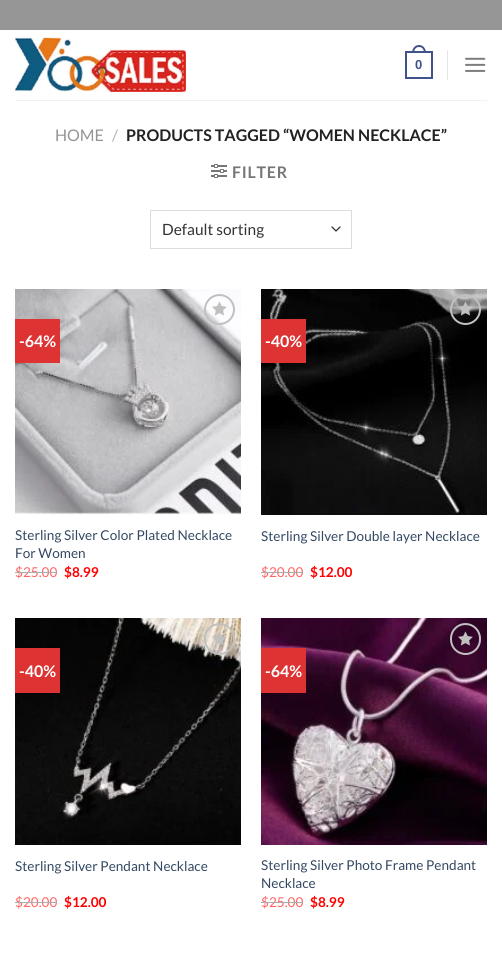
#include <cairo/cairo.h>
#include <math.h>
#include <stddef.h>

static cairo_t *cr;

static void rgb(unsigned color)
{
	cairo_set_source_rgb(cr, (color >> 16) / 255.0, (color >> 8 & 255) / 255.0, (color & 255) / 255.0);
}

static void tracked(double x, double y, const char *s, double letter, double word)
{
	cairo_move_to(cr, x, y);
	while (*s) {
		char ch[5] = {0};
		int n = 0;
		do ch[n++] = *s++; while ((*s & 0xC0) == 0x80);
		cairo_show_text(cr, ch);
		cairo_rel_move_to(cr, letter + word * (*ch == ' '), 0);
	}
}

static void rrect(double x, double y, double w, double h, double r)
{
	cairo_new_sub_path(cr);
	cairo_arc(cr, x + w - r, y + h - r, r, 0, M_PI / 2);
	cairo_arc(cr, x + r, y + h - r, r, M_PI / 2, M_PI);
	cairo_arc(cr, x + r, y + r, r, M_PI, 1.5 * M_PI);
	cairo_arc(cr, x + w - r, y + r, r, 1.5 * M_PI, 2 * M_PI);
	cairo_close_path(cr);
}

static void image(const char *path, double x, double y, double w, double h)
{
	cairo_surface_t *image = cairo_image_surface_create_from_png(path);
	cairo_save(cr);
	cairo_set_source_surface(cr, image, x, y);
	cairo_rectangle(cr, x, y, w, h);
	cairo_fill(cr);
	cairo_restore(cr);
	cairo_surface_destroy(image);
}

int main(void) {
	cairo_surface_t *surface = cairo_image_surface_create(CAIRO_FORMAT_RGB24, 502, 975);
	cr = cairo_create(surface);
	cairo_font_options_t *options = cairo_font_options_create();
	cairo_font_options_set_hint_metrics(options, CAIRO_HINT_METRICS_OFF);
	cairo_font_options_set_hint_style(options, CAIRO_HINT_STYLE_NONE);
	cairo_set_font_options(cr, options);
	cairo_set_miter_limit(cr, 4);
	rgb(0xffffff);
	cairo_paint(cr);
	rgb(0x969696);
	cairo_rectangle(cr, 0, 0, 502, 30);
	cairo_fill(cr);
	image("img/1.png", 15, 37, 171, 55);
	cairo_rectangle(cr, 406, 52, 26, 26);
	rgb(0x41528a);
	cairo_stroke(cr);
	cairo_set_fill_rule(cr, CAIRO_FILL_RULE_EVEN_ODD);
	cairo_new_path(cr);
	cairo_move_to(cr, 419, 45);
	cairo_curve_to(cr, 423.5, 45, 426, 49, 426, 53);
	cairo_line_to(cr, 412, 53);
	cairo_curve_to(cr, 412, 49, 414.5, 45, 419, 45);
	cairo_close_path(cr);
	cairo_move_to(cr, 419, 47);
	cairo_curve_to(cr, 422.5, 47, 424, 50, 424, 53);
	cairo_line_to(cr, 414, 53);
	cairo_curve_to(cr, 414, 50, 415.5, 47, 419, 47);
	cairo_close_path(cr);
	cairo_fill(cr);
	rgb(0xe6e6e6);
	cairo_rectangle(cr, 447, 50, 1, 30);
	cairo_fill(cr);
	image("img/2.png", 465, 57, 21, 15);
	rgb(0xf1f1f1);
	cairo_rectangle(cr, 15, 100, 472, 1);
	cairo_fill(cr);
	image("img/3.png", 211, 164, 16, 14);
	cairo_new_path(cr);
	cairo_move_to(cr, 332, 227);
	cairo_line_to(cr, 336, 231);
	cairo_line_to(cr, 340, 227);
	rgb(0x333333);
	cairo_set_line_width(cr, 1.3);
	cairo_set_line_cap(cr, CAIRO_LINE_CAP_ROUND);
	cairo_set_line_join(cr, CAIRO_LINE_JOIN_ROUND);
	cairo_stroke(cr);
	cairo_rectangle(cr, 150.5, 210.5, 201, 38);
	rgb(0xdddddd);
	cairo_set_line_width(cr, 1);
	cairo_set_line_cap(cr, CAIRO_LINE_CAP_BUTT);
	cairo_set_line_join(cr, CAIRO_LINE_JOIN_MITER);
	cairo_stroke(cr);
	image("img/4.png", 15, 289, 226, 226);
	rgb(0xdd3333);
	cairo_rectangle(cr, 15, 319, 45, 44);
	cairo_fill(cr);
	cairo_arc(cr, 219.5, 309.5, 14.5, 0, 2 * M_PI);
	rgb(0xc0c0c0);
	cairo_set_line_width(cr, 2);
	cairo_stroke(cr);
	image("img/5.png", 212, 301, 15, 15);
	image("img/6.png", 261, 289, 226, 226);
	rgb(0xdd3333);
	cairo_rectangle(cr, 261, 319, 45, 44);
	cairo_fill(cr);
	cairo_arc(cr, 465.5, 309.5, 14.5, 0, 2 * M_PI);
	rgb(0xc0c0c0);
	cairo_stroke(cr);
	image("img/7.png", 458, 301, 14, 15);
	image("img/8.png", 15, 618, 226, 227);
	rgb(0xdd3333);
	cairo_rectangle(cr, 15, 648, 45, 45);
	cairo_fill(cr);
	rrect(205, 624, 29, 30, 14.5);
	rgb(0xc0c0c0);
	cairo_stroke(cr);
	image("img/9.png", 212, 631, 15, 15);
	image("img/10.png", 261, 618, 226, 227);
	rgb(0xdd3333);
	cairo_rectangle(cr, 261, 648, 45, 45);
	cairo_fill(cr);
	rrect(451, 624, 29, 30, 14.5);
	rgb(0xc0c0c0);
	cairo_stroke(cr);
	image("img/11.png", 458, 631, 15, 15);
	cairo_select_font_face(cr, "Liberation Sans", CAIRO_FONT_SLANT_NORMAL, CAIRO_FONT_WEIGHT_BOLD);
	cairo_set_font_size(cr, 13);
	rgb(0x41528a);
	cairo_move_to(cr, 415, 69);
	cairo_show_text(cr, "0");
	cairo_select_font_face(cr, "Lato", CAIRO_FONT_SLANT_NORMAL, CAIRO_FONT_WEIGHT_NORMAL);
	cairo_set_font_size(cr, 16);
	rgb(0x949494);
	cairo_move_to(cr, 55, 141);
	cairo_show_text(cr, "HOME");
	rgb(0xb2b2b2);
	cairo_move_to(cr, 112, 141);
	cairo_show_text(cr, "/");
	cairo_select_font_face(cr, "Lato", CAIRO_FONT_SLANT_NORMAL, CAIRO_FONT_WEIGHT_BOLD);
	rgb(0x222222);
	cairo_move_to(cr, 126, 141);
	cairo_show_text(cr, "PRODUCTS TAGGED “WOMEN NECKLACE”");
	rgb(0x777777);
	tracked(232, 178, "FILTER", 0.75, 0);
	cairo_select_font_face(cr, "Lato", CAIRO_FONT_SLANT_NORMAL, CAIRO_FONT_WEIGHT_NORMAL);
	cairo_set_font_size(cr, 15.5);
	rgb(0x333333);
	cairo_move_to(cr, 162, 235);
	cairo_show_text(cr, "Default sorting");
	cairo_select_font_face(cr, "Lato", CAIRO_FONT_SLANT_NORMAL, CAIRO_FONT_WEIGHT_BOLD);
	cairo_set_font_size(cr, 16);
	rgb(0xffffff);
	cairo_move_to(cr, 19, 347);
	cairo_show_text(cr, "-64%");
	cairo_select_font_face(cr, "Lato", CAIRO_FONT_SLANT_NORMAL, CAIRO_FONT_WEIGHT_NORMAL);
	cairo_set_font_size(cr, 13.6);
	rgb(0x334862);
	cairo_move_to(cr, 15, 540);
	cairo_show_text(cr, "Sterling Silver Color Plated Necklace");
	cairo_move_to(cr, 15, 558);
	cairo_show_text(cr, "For Women");
	rgb(0xff6666);
	cairo_move_to(cr, 15, 577);
	cairo_show_text(cr, "$25.00");
	rgb(0xadadad);
	cairo_rectangle(cr, 15, 572, 42, 1);
	cairo_fill(cr);
	cairo_select_font_face(cr, "Lato", CAIRO_FONT_SLANT_NORMAL, CAIRO_FONT_WEIGHT_BOLD);
	rgb(0xff0000);
	cairo_move_to(cr, 64, 577);
	cairo_show_text(cr, "$8.99");
	cairo_set_font_size(cr, 16);
	rgb(0xffffff);
	cairo_move_to(cr, 265, 347);
	cairo_show_text(cr, "-40%");
	cairo_select_font_face(cr, "Lato", CAIRO_FONT_SLANT_NORMAL, CAIRO_FONT_WEIGHT_NORMAL);
	cairo_set_font_size(cr, 13.6);
	rgb(0x334862);
	cairo_move_to(cr, 261, 541);
	cairo_show_text(cr, "Sterling Silver Double layer Necklace");
	rgb(0xff6666);
	cairo_move_to(cr, 261, 577);
	cairo_show_text(cr, "$20.00");
	rgb(0xadadad);
	cairo_rectangle(cr, 261, 572, 42, 1);
	cairo_fill(cr);
	cairo_select_font_face(cr, "Lato", CAIRO_FONT_SLANT_NORMAL, CAIRO_FONT_WEIGHT_BOLD);
	rgb(0xff0000);
	cairo_move_to(cr, 310, 577);
	cairo_show_text(cr, "$12.00");
	cairo_set_font_size(cr, 16);
	rgb(0xffffff);
	cairo_move_to(cr, 19, 677);
	cairo_show_text(cr, "-40%");
	cairo_select_font_face(cr, "Lato", CAIRO_FONT_SLANT_NORMAL, CAIRO_FONT_WEIGHT_NORMAL);
	cairo_set_font_size(cr, 13.6);
	rgb(0x334862);
	cairo_move_to(cr, 15, 871);
	cairo_show_text(cr, "Sterling Silver Pendant Necklace");
	rgb(0xff6666);
	cairo_move_to(cr, 15, 907);
	cairo_show_text(cr, "$20.00");
	rgb(0xadadad);
	cairo_rectangle(cr, 15, 902, 42, 1);
	cairo_fill(cr);
	cairo_select_font_face(cr, "Lato", CAIRO_FONT_SLANT_NORMAL, CAIRO_FONT_WEIGHT_BOLD);
	rgb(0xff0000);
	cairo_move_to(cr, 64, 907);
	cairo_show_text(cr, "$12.00");
	cairo_set_font_size(cr, 16);
	rgb(0xffffff);
	cairo_move_to(cr, 265, 677);
	cairo_show_text(cr, "-64%");
	cairo_select_font_face(cr, "Lato", CAIRO_FONT_SLANT_NORMAL, CAIRO_FONT_WEIGHT_NORMAL);
	cairo_set_font_size(cr, 13.6);
	rgb(0x334862);
	cairo_move_to(cr, 261, 870);
	cairo_show_text(cr, "Sterling Silver Photo Frame Pendant");
	cairo_move_to(cr, 261, 888);
	cairo_show_text(cr, "Necklace");
	rgb(0xff6666);
	cairo_move_to(cr, 261, 907);
	cairo_show_text(cr, "$25.00");
	rgb(0xadadad);
	cairo_rectangle(cr, 261, 902, 42, 1);
	cairo_fill(cr);
	cairo_select_font_face(cr, "Lato", CAIRO_FONT_SLANT_NORMAL, CAIRO_FONT_WEIGHT_BOLD);
	rgb(0xff0000);
	cairo_move_to(cr, 310, 907);
	cairo_show_text(cr, "$8.99");
	cairo_surface_write_to_png(surface, "page.png");
	cairo_font_options_destroy(options);
	cairo_destroy(cr);
	cairo_surface_destroy(surface);
	return 0;
}
